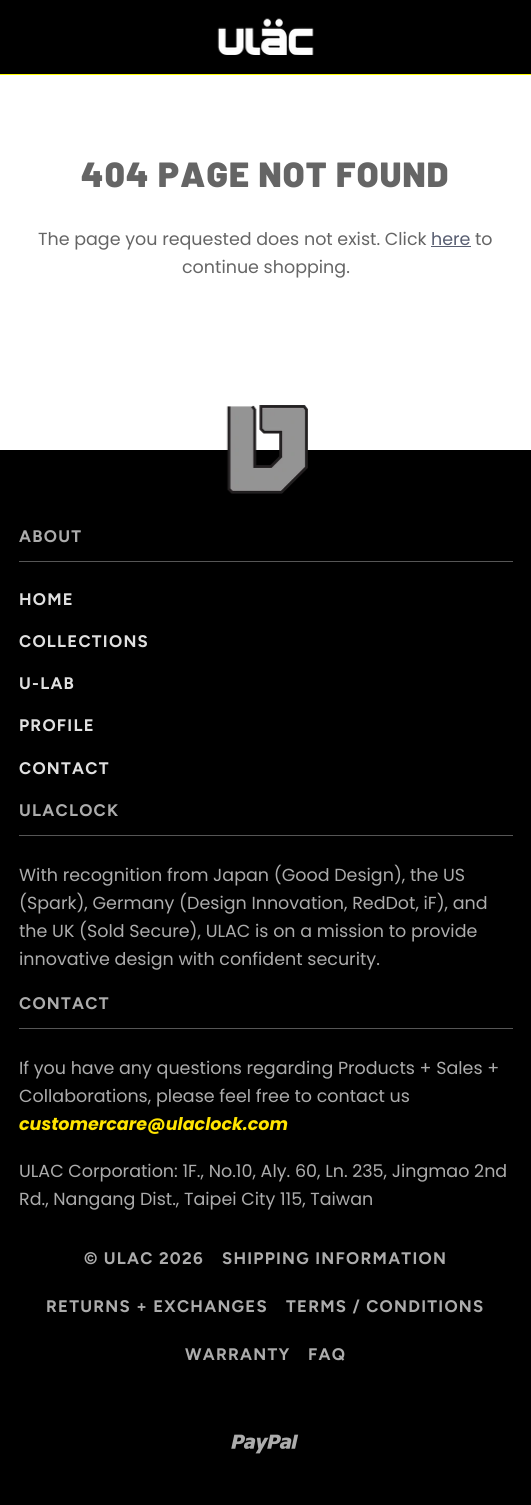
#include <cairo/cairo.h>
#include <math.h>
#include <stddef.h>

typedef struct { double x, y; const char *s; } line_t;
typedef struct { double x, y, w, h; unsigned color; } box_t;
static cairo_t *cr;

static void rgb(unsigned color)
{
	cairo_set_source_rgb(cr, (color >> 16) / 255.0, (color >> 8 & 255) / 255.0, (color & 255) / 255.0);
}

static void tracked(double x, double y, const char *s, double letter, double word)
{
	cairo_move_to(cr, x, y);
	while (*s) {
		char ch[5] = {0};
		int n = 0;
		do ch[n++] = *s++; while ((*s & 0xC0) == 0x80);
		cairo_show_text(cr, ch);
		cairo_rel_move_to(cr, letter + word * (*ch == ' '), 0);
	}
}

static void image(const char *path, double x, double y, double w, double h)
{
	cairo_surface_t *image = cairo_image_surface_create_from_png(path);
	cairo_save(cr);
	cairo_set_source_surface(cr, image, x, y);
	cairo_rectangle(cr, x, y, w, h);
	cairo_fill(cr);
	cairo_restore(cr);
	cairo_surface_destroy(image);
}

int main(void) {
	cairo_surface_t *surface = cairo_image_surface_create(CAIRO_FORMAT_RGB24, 531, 1505);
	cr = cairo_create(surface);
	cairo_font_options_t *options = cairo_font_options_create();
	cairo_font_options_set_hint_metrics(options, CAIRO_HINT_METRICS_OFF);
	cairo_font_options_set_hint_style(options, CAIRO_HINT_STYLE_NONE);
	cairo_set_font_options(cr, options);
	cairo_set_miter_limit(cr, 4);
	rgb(0xffffff);
	cairo_paint(cr);
	rgb(0x000000);
	cairo_rectangle(cr, 0, 0, 531, 74);
	cairo_fill(cr);
	rgb(0xfffb00);
	cairo_rectangle(cr, 0, 74, 531, 1);
	cairo_fill(cr);
	image("img/1.png", 217, 18, 97, 37);
	rgb(0x585e71);
	cairo_rectangle(cr, 431, 246, 40, 1);
	cairo_fill(cr);
	rgb(0x000000);
	cairo_rectangle(cr, 0, 450, 531, 1055);
	cairo_fill(cr);
	image("img/2.png", 226, 405, 82, 89);
	{
		static const box_t items[] = {
			{19, 561, 494, 1, 0x565656},
			{19, 835, 494, 1, 0x565656},
			{19, 1028, 494, 1, 0x565656},
		};
		for (size_t i = 0; i < sizeof items / sizeof *items; i++) {
			rgb(items[i].color);
			cairo_rectangle(cr, items[i].x, items[i].y, items[i].w, items[i].h);
			cairo_fill(cr);
		}
	}
	image("img/3.png", 231, 1434, 68, 20);
	cairo_select_font_face(cr, "Barlow Black", CAIRO_FONT_SLANT_NORMAL, CAIRO_FONT_WEIGHT_NORMAL);
	cairo_set_font_size(cr, 35);
	rgb(0x656565);
	tracked(81, 187, "404 PAGE NOT FOUND", 1.25, 0);
	cairo_select_font_face(cr, "Poppins", CAIRO_FONT_SLANT_NORMAL, CAIRO_FONT_WEIGHT_NORMAL);
	cairo_set_font_size(cr, 17.5);
	cairo_move_to(cr, 38, 245);
	cairo_show_text(cr, "The page you requested does not exist. Click");
	rgb(0x585e71);
	cairo_move_to(cr, 431, 245);
	cairo_show_text(cr, "here");
	rgb(0x656565);
	cairo_move_to(cr, 475, 245);
	cairo_show_text(cr, "to");
	cairo_move_to(cr, 182, 273);
	cairo_show_text(cr, "continue shopping.");
	cairo_select_font_face(cr, "Figtree", CAIRO_FONT_SLANT_NORMAL, CAIRO_FONT_WEIGHT_BOLD);
	cairo_set_font_size(cr, 16.75);
	rgb(0xacacac);
	tracked(19, 542, "ABOUT", 1.25, 0);
	rgb(0xe0e0e0);
	{
		static const line_t items[] = {
			{19, 605, "HOME"},
			{19, 647, "COLLECTIONS"},
			{19, 689, "U-LAB"},
			{19, 731, "PROFILE"},
			{19, 774, "CONTACT"},
		};
		for (size_t i = 0; i < sizeof items / sizeof *items; i++) {
			tracked(items[i].x, items[i].y, items[i].s, 1.25, 0);
		}
	}
	rgb(0xacacac);
	tracked(19, 816, "ULACLOCK", 1.25, 0);
	cairo_select_font_face(cr, "Poppins", CAIRO_FONT_SLANT_NORMAL, CAIRO_FONT_WEIGHT_NORMAL);
	cairo_set_font_size(cr, 17.5);
	{
		static const line_t items[] = {
			{19, 881, "With recognition from Japan (Good Design), the US"},
			{19, 909, "(Spark), Germany (Design Innovation, RedDot, iF), and"},
			{19, 937, "the UK (Sold Secure), ULAC is on a mission to provide"},
			{19, 965, "innovative design with confident security."},
		};
		for (size_t i = 0; i < sizeof items / sizeof *items; i++) {
			cairo_move_to(cr, items[i].x, items[i].y);
			cairo_show_text(cr, items[i].s);
		}
	}
	cairo_select_font_face(cr, "Figtree", CAIRO_FONT_SLANT_NORMAL, CAIRO_FONT_WEIGHT_BOLD);
	cairo_set_font_size(cr, 16.75);
	tracked(19, 1009, "CONTACT", 1.25, 0);
	cairo_select_font_face(cr, "Poppins", CAIRO_FONT_SLANT_NORMAL, CAIRO_FONT_WEIGHT_NORMAL);
	cairo_set_font_size(cr, 17.5);
	cairo_move_to(cr, 19, 1074);
	cairo_show_text(cr, "If you have any questions regarding Products + Sales +");
	cairo_move_to(cr, 19, 1102);
	cairo_show_text(cr, "Collaborations, please feel free to contact us");
	cairo_select_font_face(cr, "Poppins", CAIRO_FONT_SLANT_ITALIC, CAIRO_FONT_WEIGHT_BOLD);
	rgb(0xffe400);
	cairo_move_to(cr, 19, 1130);
	cairo_show_text(cr, "customercare@ulaclock.com");
	cairo_select_font_face(cr, "Poppins", CAIRO_FONT_SLANT_NORMAL, CAIRO_FONT_WEIGHT_NORMAL);
	rgb(0xacacac);
	cairo_move_to(cr, 19, 1177);
	cairo_show_text(cr, "ULAC Corporation: 1F., No.10, Aly. 60, Ln. 235, Jingmao 2nd");
	cairo_move_to(cr, 19, 1205);
	cairo_show_text(cr, "Rd., Nangang Dist., Taipei City 115, Taiwan");
	cairo_select_font_face(cr, "Figtree", CAIRO_FONT_SLANT_NORMAL, CAIRO_FONT_WEIGHT_BOLD);
	cairo_set_font_size(cr, 16.75);
	{
		static const line_t items[] = {
			{84, 1264, "© ULAC 2026"},
			{222, 1264, "SHIPPING INFORMATION"},
			{46, 1312, "RETURNS + EXCHANGES"},
			{286, 1312, "TERMS / CONDITIONS"},
			{185, 1360, "WARRANTY"},
			{308, 1360, "FAQ"},
		};
		for (size_t i = 0; i < sizeof items / sizeof *items; i++) {
			tracked(items[i].x, items[i].y, items[i].s, 1.25, 0);
		}
	}
	cairo_surface_write_to_png(surface, "page.png");
	cairo_font_options_destroy(options);
	cairo_destroy(cr);
	cairo_surface_destroy(surface);
	return 0;
}
